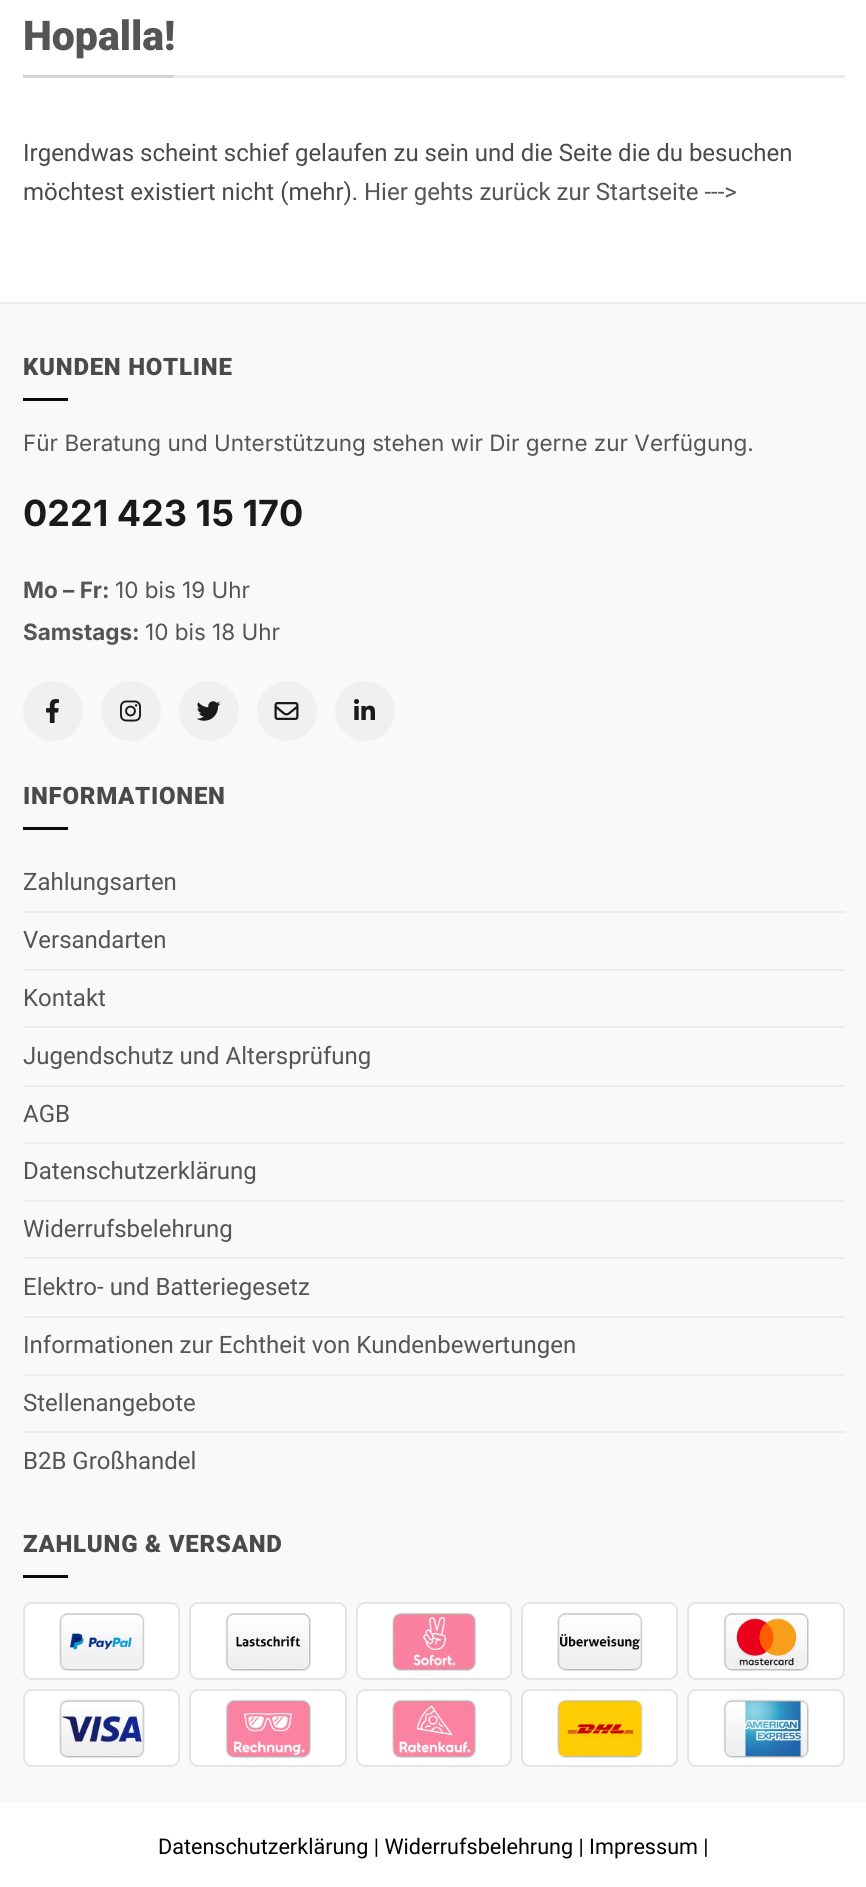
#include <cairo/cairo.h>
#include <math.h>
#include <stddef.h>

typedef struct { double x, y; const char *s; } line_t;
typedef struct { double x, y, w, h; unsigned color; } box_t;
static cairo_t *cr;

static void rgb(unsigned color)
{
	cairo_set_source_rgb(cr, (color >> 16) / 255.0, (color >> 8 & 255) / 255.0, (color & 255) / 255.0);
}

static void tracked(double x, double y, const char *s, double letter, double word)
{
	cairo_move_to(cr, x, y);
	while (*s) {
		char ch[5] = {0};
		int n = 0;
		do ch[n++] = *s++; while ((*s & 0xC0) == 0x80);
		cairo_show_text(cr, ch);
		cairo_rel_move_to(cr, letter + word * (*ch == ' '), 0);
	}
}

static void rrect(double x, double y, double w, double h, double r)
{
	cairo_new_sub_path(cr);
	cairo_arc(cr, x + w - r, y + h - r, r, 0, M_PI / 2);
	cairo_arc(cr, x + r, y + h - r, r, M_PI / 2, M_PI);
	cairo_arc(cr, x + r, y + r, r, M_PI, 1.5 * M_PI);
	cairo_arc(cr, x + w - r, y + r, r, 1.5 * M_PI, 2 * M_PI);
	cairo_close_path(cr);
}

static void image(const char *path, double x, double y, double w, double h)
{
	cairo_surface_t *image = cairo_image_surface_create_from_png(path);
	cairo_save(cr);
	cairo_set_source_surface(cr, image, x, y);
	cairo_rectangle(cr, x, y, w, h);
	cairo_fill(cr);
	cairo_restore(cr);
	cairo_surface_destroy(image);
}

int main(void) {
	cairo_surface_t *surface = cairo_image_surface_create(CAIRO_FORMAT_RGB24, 866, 1887);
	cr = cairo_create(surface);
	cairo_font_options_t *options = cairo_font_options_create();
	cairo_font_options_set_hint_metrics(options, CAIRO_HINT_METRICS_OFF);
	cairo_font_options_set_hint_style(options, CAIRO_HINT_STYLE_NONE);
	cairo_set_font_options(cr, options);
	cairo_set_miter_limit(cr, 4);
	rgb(0xffffff);
	cairo_paint(cr);
	{
		static const box_t items[] = {
			{174, 75, 671, 3, 0xececec},
			{23, 75, 151, 3, 0xd4d4d4},
			{0, 304, 866, 1499, 0xf9f9f9},
			{0, 302, 866, 2, 0xededed},
			{23, 398, 45, 3, 0x0a0a0a},
		};
		for (size_t i = 0; i < sizeof items / sizeof *items; i++) {
			rgb(items[i].color);
			cairo_rectangle(cr, items[i].x, items[i].y, items[i].w, items[i].h);
			cairo_fill(cr);
		}
	}
	rgb(0xf0f0f0);
	cairo_arc(cr, 53, 711, 30, 0, 2 * M_PI);
	cairo_fill(cr);
	image("img/1.png", 46, 699, 13, 24);
	cairo_arc(cr, 131, 711, 30, 0, 2 * M_PI);
	cairo_fill(cr);
	image("img/2.png", 120, 700, 21, 22);
	cairo_arc(cr, 209, 711, 30, 0, 2 * M_PI);
	cairo_fill(cr);
	image("img/3.png", 196, 701, 25, 20);
	cairo_arc(cr, 287, 711, 30, 0, 2 * M_PI);
	cairo_fill(cr);
	image("img/4.png", 274, 702, 25, 18);
	cairo_arc(cr, 365, 711, 30, 0, 2 * M_PI);
	cairo_fill(cr);
	image("img/5.png", 354, 699, 21, 21);
	{
		static const box_t items[] = {
			{23, 827, 45, 3, 0x0a0a0a},
			{23, 911, 822, 2, 0xececec},
			{23, 969, 822, 2, 0xececec},
			{23, 1026, 822, 2, 0xececec},
			{23, 1085, 822, 2, 0xececec},
			{23, 1142, 822, 2, 0xececec},
			{23, 1200, 822, 2, 0xececec},
			{23, 1257, 822, 2, 0xececec},
			{23, 1316, 822, 2, 0xececec},
			{23, 1374, 822, 2, 0xececec},
			{23, 1431, 822, 2, 0xececec},
			{23, 1575, 45, 3, 0x0a0a0a},
		};
		for (size_t i = 0; i < sizeof items / sizeof *items; i++) {
			rgb(items[i].color);
			cairo_rectangle(cr, items[i].x, items[i].y, items[i].w, items[i].h);
			cairo_fill(cr);
		}
	}
	rgb(0xffffff);
	rrect(24, 1603, 155, 76, 8);
	cairo_fill_preserve(cr);
	rgb(0xe5e5e5);
	cairo_stroke(cr);
	image("img/6.png", 59, 1612, 86, 59);
	rgb(0xffffff);
	rrect(190, 1603, 156, 76, 8);
	cairo_fill_preserve(cr);
	rgb(0xe5e5e5);
	cairo_stroke(cr);
	image("img/7.png", 225, 1612, 86, 59);
	rgb(0xffffff);
	rrect(357, 1603, 154, 76, 8);
	cairo_fill_preserve(cr);
	rgb(0xe5e5e5);
	cairo_stroke(cr);
	image("img/8.png", 392, 1612, 85, 59);
	rgb(0xffffff);
	rrect(522, 1603, 155, 76, 8);
	cairo_fill_preserve(cr);
	rgb(0xe5e5e5);
	cairo_stroke(cr);
	image("img/9.png", 557, 1612, 86, 59);
	rgb(0xffffff);
	rrect(688, 1603, 156, 76, 8);
	cairo_fill_preserve(cr);
	rgb(0xe5e5e5);
	cairo_stroke(cr);
	image("img/10.png", 723, 1612, 86, 59);
	rgb(0xffffff);
	rrect(24, 1690, 155, 76, 8);
	cairo_fill_preserve(cr);
	rgb(0xe5e5e5);
	cairo_stroke(cr);
	image("img/11.png", 59, 1699, 86, 59);
	rgb(0xffffff);
	rrect(190, 1690, 156, 76, 8);
	cairo_fill_preserve(cr);
	rgb(0xe5e5e5);
	cairo_stroke(cr);
	image("img/12.png", 225, 1699, 87, 60);
	rgb(0xffffff);
	rrect(357, 1690, 154, 76, 8);
	cairo_fill_preserve(cr);
	rgb(0xe5e5e5);
	cairo_stroke(cr);
	image("img/13.png", 392, 1699, 85, 59);
	rgb(0xffffff);
	rrect(522, 1690, 155, 76, 8);
	cairo_fill_preserve(cr);
	rgb(0xe5e5e5);
	cairo_stroke(cr);
	image("img/14.png", 557, 1699, 86, 59);
	rgb(0xffffff);
	rrect(688, 1690, 156, 76, 8);
	cairo_fill_preserve(cr);
	rgb(0xe5e5e5);
	cairo_stroke(cr);
	image("img/15.png", 723, 1699, 86, 60);
	cairo_select_font_face(cr, "Roboto Black", CAIRO_FONT_SLANT_NORMAL, CAIRO_FONT_WEIGHT_NORMAL);
	cairo_set_font_size(cr, 41);
	rgb(0x555555);
	cairo_move_to(cr, 23, 50);
	cairo_show_text(cr, "Hopalla!");
	cairo_select_font_face(cr, "Roboto", CAIRO_FONT_SLANT_NORMAL, CAIRO_FONT_WEIGHT_NORMAL);
	cairo_set_font_size(cr, 24);
	rgb(0x4a4a4a);
	cairo_move_to(cr, 23, 161);
	cairo_show_text(cr, "Irgendwas scheint schief gelaufen zu sein und die Seite die du besuchen");
	cairo_move_to(cr, 23, 200);
	cairo_show_text(cr, "möchtest existiert nicht (mehr).");
	rgb(0x555555);
	cairo_move_to(cr, 364, 200);
	cairo_show_text(cr, "Hier gehts zurück zur Startseite --->");
	cairo_select_font_face(cr, "Roboto Black", CAIRO_FONT_SLANT_NORMAL, CAIRO_FONT_WEIGHT_NORMAL);
	rgb(0x4a4a4a);
	tracked(23, 375, "KUNDEN HOTLINE", 0.75, 0);
	cairo_select_font_face(cr, "Inter", CAIRO_FONT_SLANT_NORMAL, CAIRO_FONT_WEIGHT_NORMAL);
	cairo_set_font_size(cr, 22.5);
	rgb(0x555555);
	cairo_move_to(cr, 23, 451);
	cairo_show_text(cr, "Für Beratung und Unterstützung stehen wir Dir gerne zur Verfügung.");
	cairo_select_font_face(cr, "Inter", CAIRO_FONT_SLANT_NORMAL, CAIRO_FONT_WEIGHT_BOLD);
	cairo_set_font_size(cr, 36);
	rgb(0x1a1a1a);
	cairo_move_to(cr, 23, 526);
	cairo_show_text(cr, "0221 423 15 170");
	cairo_set_font_size(cr, 22.5);
	rgb(0x555555);
	cairo_move_to(cr, 23, 598);
	cairo_show_text(cr, "Mo – Fr:");
	cairo_select_font_face(cr, "Inter", CAIRO_FONT_SLANT_NORMAL, CAIRO_FONT_WEIGHT_NORMAL);
	cairo_move_to(cr, 115, 598);
	cairo_show_text(cr, "10 bis 19 Uhr");
	cairo_select_font_face(cr, "Inter", CAIRO_FONT_SLANT_NORMAL, CAIRO_FONT_WEIGHT_BOLD);
	cairo_move_to(cr, 23, 640);
	cairo_show_text(cr, "Samstags:");
	cairo_select_font_face(cr, "Inter", CAIRO_FONT_SLANT_NORMAL, CAIRO_FONT_WEIGHT_NORMAL);
	cairo_move_to(cr, 145, 640);
	cairo_show_text(cr, "10 bis 18 Uhr");
	cairo_select_font_face(cr, "Roboto Black", CAIRO_FONT_SLANT_NORMAL, CAIRO_FONT_WEIGHT_NORMAL);
	cairo_set_font_size(cr, 24);
	rgb(0x4a4a4a);
	tracked(23, 804, "INFORMATIONEN", 0.75, 0);
	cairo_select_font_face(cr, "Roboto", CAIRO_FONT_SLANT_NORMAL, CAIRO_FONT_WEIGHT_NORMAL);
	rgb(0x555555);
	{
		static const line_t items[] = {
			{23, 890, "Zahlungsarten"},
			{23, 948, "Versandarten"},
			{23, 1006, "Kontakt"},
			{23, 1064, "Jugendschutz und Altersprüfung"},
			{23, 1122, "AGB"},
			{23, 1179, "Datenschutzerklärung"},
			{23, 1237, "Widerrufsbelehrung"},
			{23, 1295, "Elektro- und Batteriegesetz"},
			{23, 1353, "Informationen zur Echtheit von Kundenbewertungen"},
			{23, 1411, "Stellenangebote"},
			{23, 1469, "B2B Großhandel"},
		};
		for (size_t i = 0; i < sizeof items / sizeof *items; i++) {
			cairo_move_to(cr, items[i].x, items[i].y);
			cairo_show_text(cr, items[i].s);
		}
	}
	cairo_select_font_face(cr, "Roboto Black", CAIRO_FONT_SLANT_NORMAL, CAIRO_FONT_WEIGHT_NORMAL);
	rgb(0x4a4a4a);
	tracked(23, 1552, "ZAHLUNG & VERSAND", 0.75, 0);
	cairo_select_font_face(cr, "Roboto", CAIRO_FONT_SLANT_NORMAL, CAIRO_FONT_WEIGHT_NORMAL);
	cairo_set_font_size(cr, 21.6);
	rgb(0x000000);
	cairo_move_to(cr, 158, 1854);
	cairo_show_text(cr, "Datenschutzerklärung | Widerrufsbelehrung | Impressum |");
	cairo_surface_write_to_png(surface, "page.png");
	cairo_font_options_destroy(options);
	cairo_destroy(cr);
	cairo_surface_destroy(surface);
	return 0;
}
